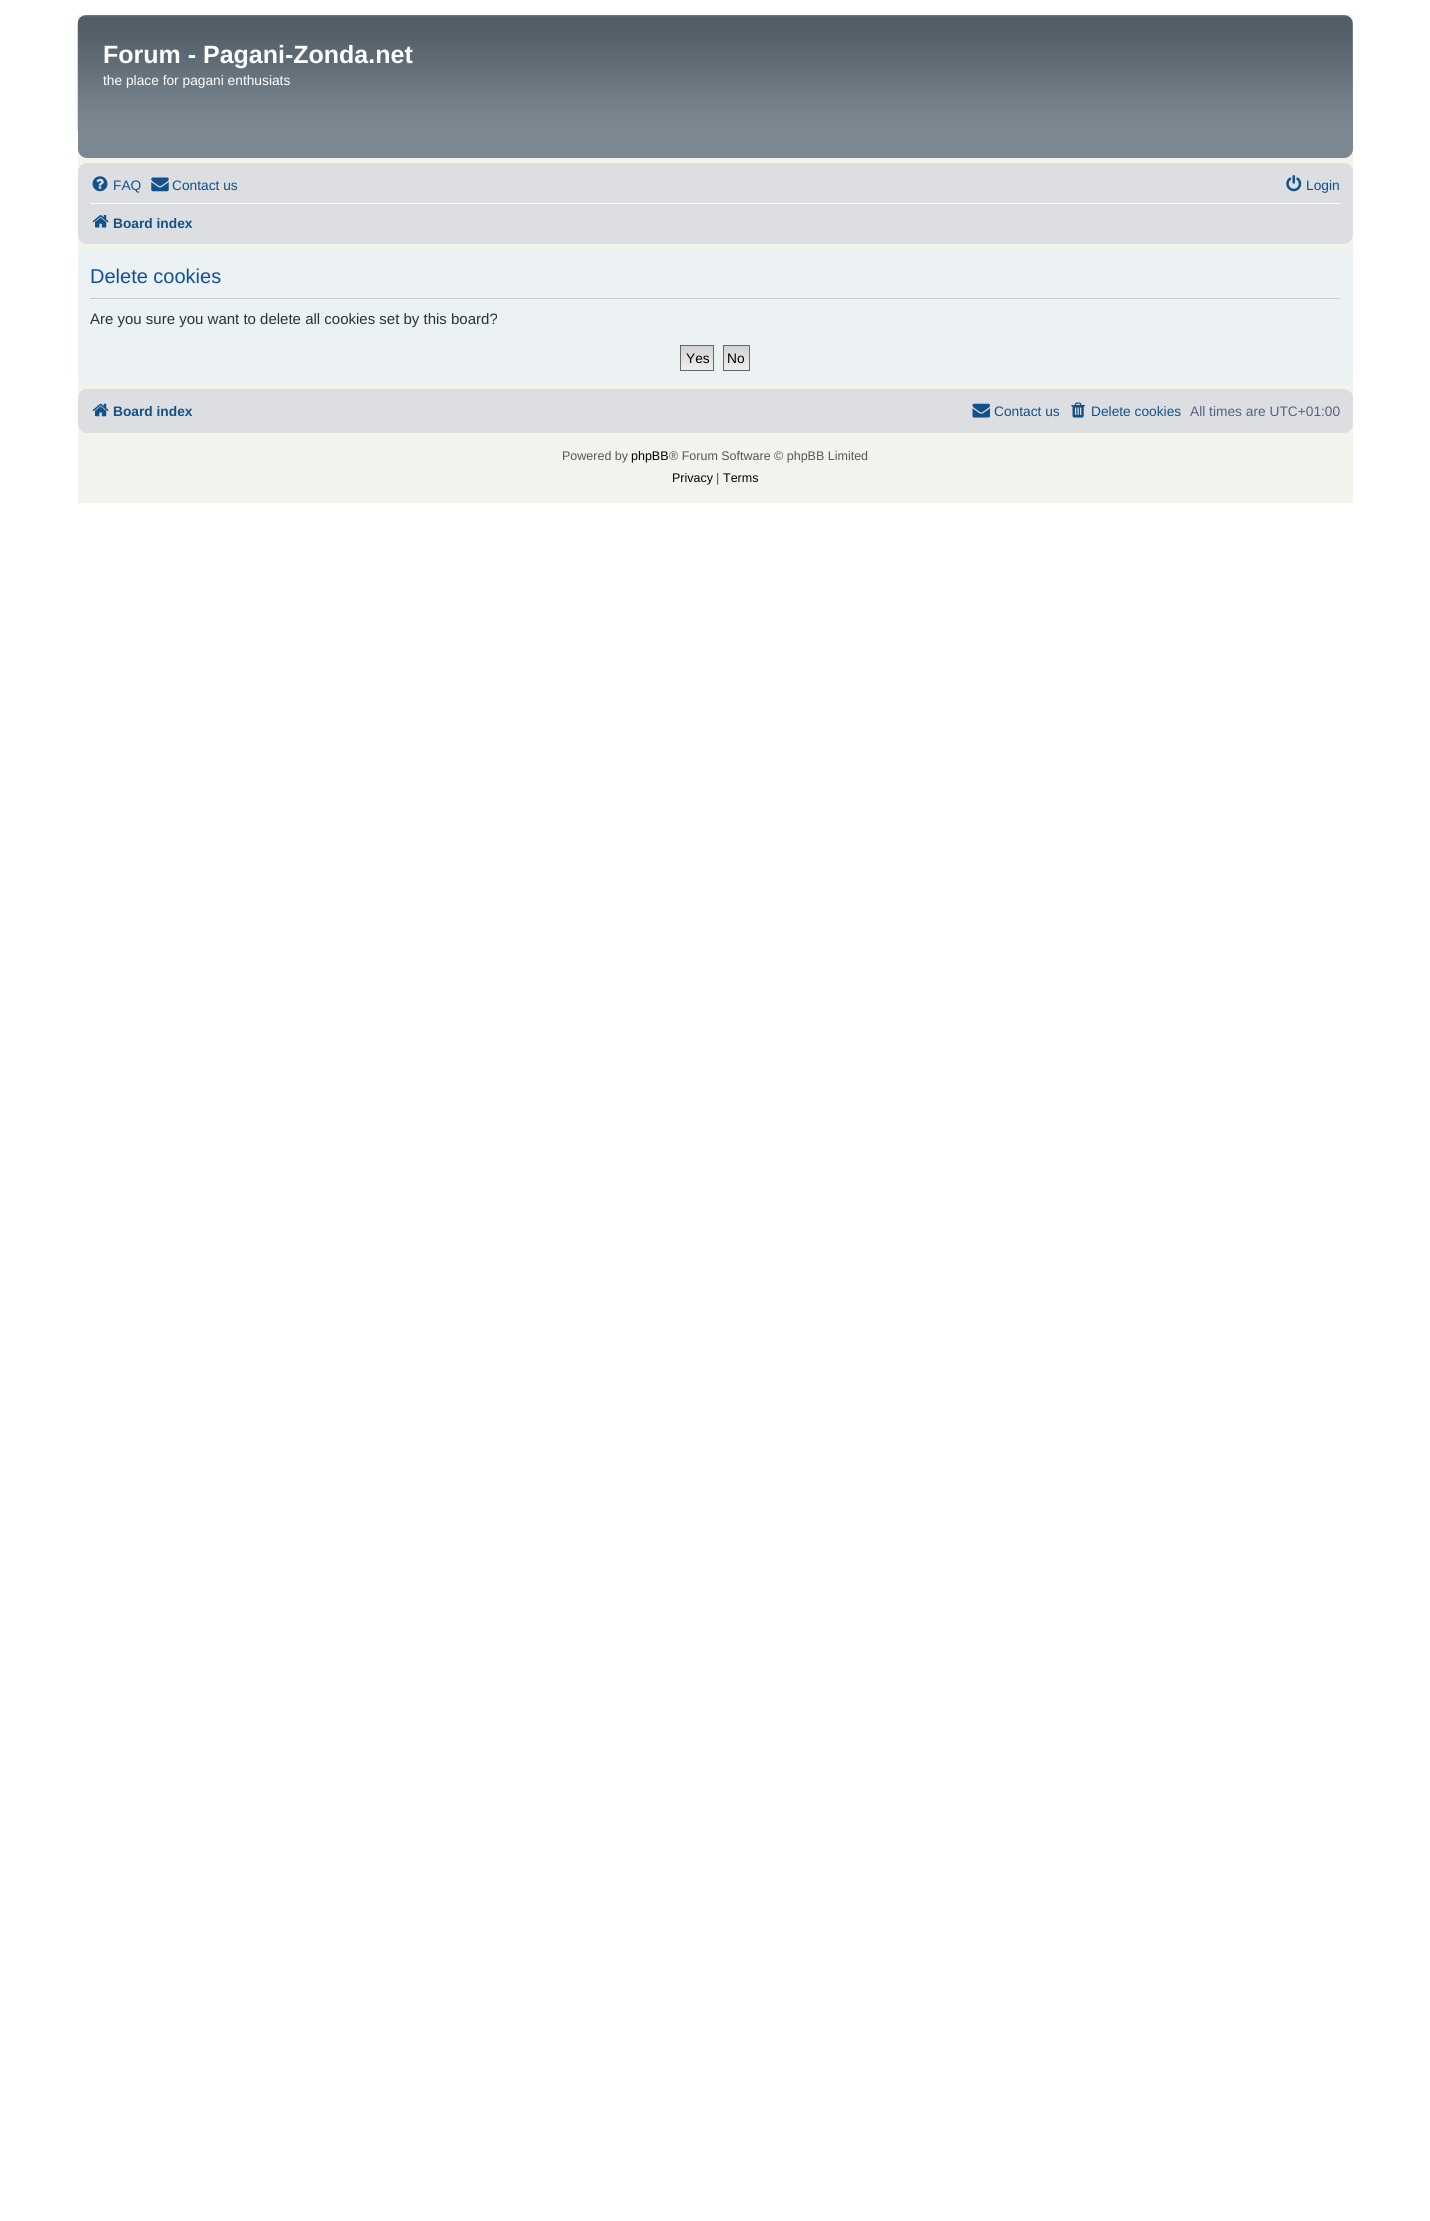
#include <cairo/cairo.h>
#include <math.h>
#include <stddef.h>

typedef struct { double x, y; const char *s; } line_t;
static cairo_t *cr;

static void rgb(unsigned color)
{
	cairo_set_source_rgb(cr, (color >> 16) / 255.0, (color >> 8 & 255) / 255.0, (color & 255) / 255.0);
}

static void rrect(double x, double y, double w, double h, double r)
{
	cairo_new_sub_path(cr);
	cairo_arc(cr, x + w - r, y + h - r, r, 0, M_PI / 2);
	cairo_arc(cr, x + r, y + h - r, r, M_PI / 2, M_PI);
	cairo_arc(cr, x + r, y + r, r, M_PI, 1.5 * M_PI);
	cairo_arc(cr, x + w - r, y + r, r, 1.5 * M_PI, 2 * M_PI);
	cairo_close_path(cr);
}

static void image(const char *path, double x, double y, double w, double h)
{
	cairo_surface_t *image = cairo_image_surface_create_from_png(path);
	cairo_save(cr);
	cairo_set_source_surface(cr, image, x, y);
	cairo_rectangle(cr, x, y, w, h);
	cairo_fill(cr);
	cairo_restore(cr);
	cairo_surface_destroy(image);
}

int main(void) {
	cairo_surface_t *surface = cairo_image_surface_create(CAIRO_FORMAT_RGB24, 1430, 2221);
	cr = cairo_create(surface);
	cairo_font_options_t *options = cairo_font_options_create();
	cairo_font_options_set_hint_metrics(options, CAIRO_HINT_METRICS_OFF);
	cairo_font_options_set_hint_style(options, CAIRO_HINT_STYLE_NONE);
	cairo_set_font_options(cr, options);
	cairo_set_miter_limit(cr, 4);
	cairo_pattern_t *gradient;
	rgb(0xffffff);
	cairo_paint(cr);
	rgb(0xf3f3ee);
	cairo_rectangle(cr, 78, 15, 1275, 488);
	cairo_fill(cr);
	rgb(0x7c8891);
	rrect(78, 15, 1275, 143, 9);
	cairo_fill(cr);
	image("img/1.png", 77, 15, 1276, 115);
	rgb(0xdcdee2);
	rrect(78, 163, 1275, 81, 9);
	cairo_fill(cr);
	image("img/2.png", 92, 176, 16, 16);
	image("img/3.png", 151, 177, 18, 15);
	image("img/4.png", 1286, 175, 16, 17);
	rgb(0xffffff);
	cairo_rectangle(cr, 90, 203, 1250, 1);
	cairo_fill(cr);
	image("img/5.png", 92, 215, 17, 13);
	rgb(0xecf1f3);
	rrect(78, 249, 1275, 135, 9);
	cairo_fill(cr);
	rgb(0xcccccc);
	cairo_rectangle(cr, 90, 298, 1250, 1);
	cairo_fill(cr);
	gradient = cairo_pattern_create_linear(697, 346, 697, 370);
	cairo_pattern_add_color_stop_rgba(gradient, 0, 0.824, 0.824, 0.824, 1);
	cairo_pattern_add_color_stop_rgba(gradient, 1, 0.937, 0.937, 0.937, 1);
	cairo_set_source(cr, gradient);
	cairo_pattern_destroy(gradient);
	cairo_rectangle(cr, 681, 346, 32, 24);
	cairo_fill(cr);
	cairo_rectangle(cr, 680.5, 345.5, 33, 25);
	rgb(0x666666);
	cairo_set_line_width(cr, 1);
	cairo_stroke(cr);
	gradient = cairo_pattern_create_linear(736, 346, 736, 370);
	cairo_pattern_add_color_stop_rgba(gradient, 0, 0.824, 0.824, 0.824, 1);
	cairo_pattern_add_color_stop_rgba(gradient, 1, 0.937, 0.937, 0.937, 1);
	cairo_set_source(cr, gradient);
	cairo_pattern_destroy(gradient);
	cairo_rectangle(cr, 724, 346, 25, 24);
	cairo_fill(cr);
	cairo_rectangle(cr, 723.5, 345.5, 26, 25);
	rgb(0x666666);
	cairo_stroke(cr);
	rgb(0xdcdee2);
	rrect(78, 389, 1275, 44, 9);
	cairo_fill(cr);
	image("img/6.png", 92, 403, 17, 14);
	image("img/7.png", 972, 403, 18, 15);
	image("img/8.png", 1071, 402, 14, 16);
	cairo_select_font_face(cr, "Liberation Sans", CAIRO_FONT_SLANT_NORMAL, CAIRO_FONT_WEIGHT_BOLD);
	cairo_set_font_size(cr, 25);
	rgb(0xffffff);
	cairo_move_to(cr, 103, 63);
	cairo_show_text(cr, "Forum - Pagani-Zonda.net");
	cairo_select_font_face(cr, "Liberation Sans", CAIRO_FONT_SLANT_NORMAL, CAIRO_FONT_WEIGHT_NORMAL);
	cairo_set_font_size(cr, 13.75);
	cairo_move_to(cr, 103, 85);
	cairo_show_text(cr, "the place for pagani enthusiats");
	rgb(0x105289);
	{
		static const line_t items[] = {
			{113, 190, "FAQ"},
			{172, 190, "Contact us"},
			{1306, 190, "Login"},
		};
		for (size_t i = 0; i < sizeof items / sizeof *items; i++) {
			cairo_move_to(cr, items[i].x, items[i].y);
			cairo_show_text(cr, items[i].s);
		}
	}
	cairo_select_font_face(cr, "Liberation Sans", CAIRO_FONT_SLANT_NORMAL, CAIRO_FONT_WEIGHT_BOLD);
	cairo_move_to(cr, 113, 228);
	cairo_show_text(cr, "Board index");
	cairo_select_font_face(cr, "Liberation Sans", CAIRO_FONT_SLANT_NORMAL, CAIRO_FONT_WEIGHT_NORMAL);
	cairo_set_font_size(cr, 20);
	rgb(0x115098);
	cairo_move_to(cr, 90, 283);
	cairo_show_text(cr, "Delete cookies");
	cairo_set_font_size(cr, 15);
	rgb(0x28313f);
	cairo_move_to(cr, 90, 324);
	cairo_show_text(cr, "Are you sure you want to delete all cookies set by this board?");
	cairo_set_font_size(cr, 13.75);
	rgb(0x000000);
	cairo_move_to(cr, 686, 363);
	cairo_show_text(cr, "Yes");
	cairo_move_to(cr, 727, 363);
	cairo_show_text(cr, "No");
	cairo_select_font_face(cr, "Liberation Sans", CAIRO_FONT_SLANT_NORMAL, CAIRO_FONT_WEIGHT_BOLD);
	rgb(0x105289);
	cairo_move_to(cr, 113, 416);
	cairo_show_text(cr, "Board index");
	cairo_select_font_face(cr, "Liberation Sans", CAIRO_FONT_SLANT_NORMAL, CAIRO_FONT_WEIGHT_NORMAL);
	cairo_move_to(cr, 994, 416);
	cairo_show_text(cr, "Contact us");
	cairo_move_to(cr, 1091, 416);
	cairo_show_text(cr, "Delete cookies");
	rgb(0x536482);
	cairo_move_to(cr, 1190, 416);
	cairo_show_text(cr, "All times are UTC+01:00");
	cairo_set_font_size(cr, 12.5);
	rgb(0x555555);
	cairo_move_to(cr, 562, 460);
	cairo_show_text(cr, "Powered by");
	rgb(0x000000);
	cairo_move_to(cr, 631, 460);
	cairo_show_text(cr, "phpBB");
	rgb(0x555555);
	cairo_move_to(cr, 669, 460);
	cairo_show_text(cr, "® Forum Software © phpBB Limited");
	rgb(0x000000);
	cairo_move_to(cr, 672, 482);
	cairo_show_text(cr, "Privacy");
	rgb(0x555555);
	cairo_move_to(cr, 716, 482);
	cairo_show_text(cr, "|");
	rgb(0x000000);
	cairo_move_to(cr, 723, 482);
	cairo_show_text(cr, "Terms");
	cairo_surface_write_to_png(surface, "page.png");
	cairo_font_options_destroy(options);
	cairo_destroy(cr);
	cairo_surface_destroy(surface);
	return 0;
}
